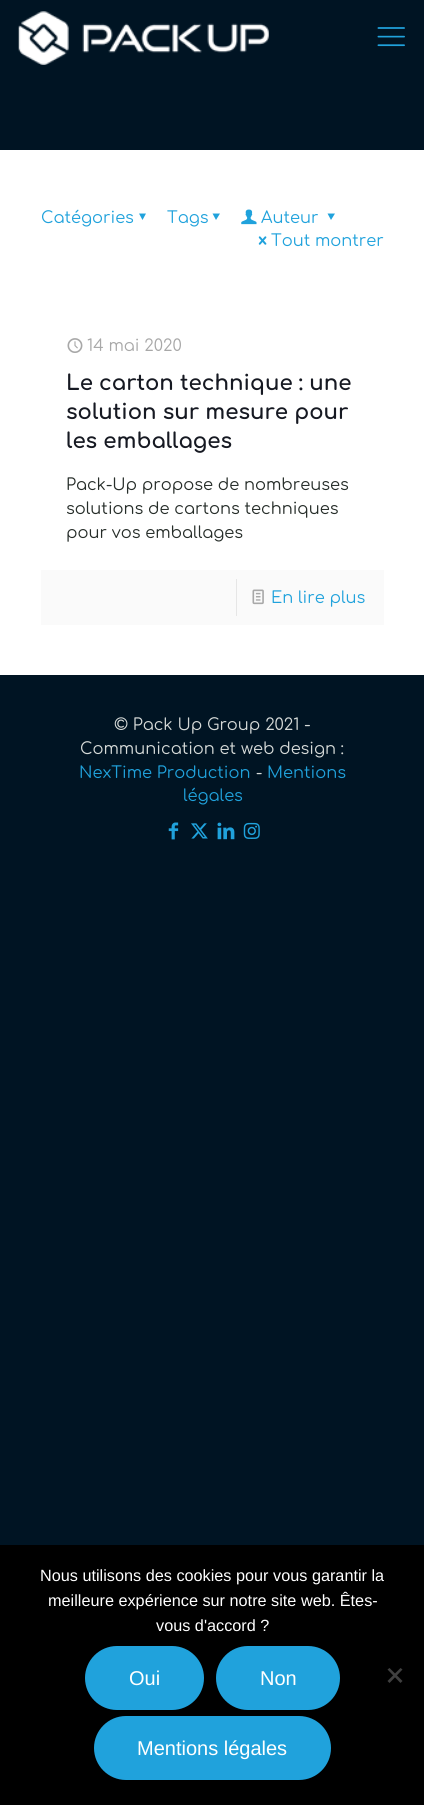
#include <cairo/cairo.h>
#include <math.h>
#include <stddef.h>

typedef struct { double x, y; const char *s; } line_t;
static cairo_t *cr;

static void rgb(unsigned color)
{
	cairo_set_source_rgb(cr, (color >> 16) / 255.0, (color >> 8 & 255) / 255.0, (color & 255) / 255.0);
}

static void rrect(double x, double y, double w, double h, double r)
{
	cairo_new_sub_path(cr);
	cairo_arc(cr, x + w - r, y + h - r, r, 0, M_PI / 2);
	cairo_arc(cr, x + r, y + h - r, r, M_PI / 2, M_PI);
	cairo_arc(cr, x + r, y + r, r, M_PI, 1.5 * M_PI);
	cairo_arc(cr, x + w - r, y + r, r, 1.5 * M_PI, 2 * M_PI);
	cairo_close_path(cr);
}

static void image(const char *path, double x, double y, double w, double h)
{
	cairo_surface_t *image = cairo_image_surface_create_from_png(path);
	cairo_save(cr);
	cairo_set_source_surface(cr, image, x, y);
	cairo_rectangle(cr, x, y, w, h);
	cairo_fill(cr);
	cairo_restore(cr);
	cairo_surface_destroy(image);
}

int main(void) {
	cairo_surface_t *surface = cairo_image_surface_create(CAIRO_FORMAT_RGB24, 424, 1805);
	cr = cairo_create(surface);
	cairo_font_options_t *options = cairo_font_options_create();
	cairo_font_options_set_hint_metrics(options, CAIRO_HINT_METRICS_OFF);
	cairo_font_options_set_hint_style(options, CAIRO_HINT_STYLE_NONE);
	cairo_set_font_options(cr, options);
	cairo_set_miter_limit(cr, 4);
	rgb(0x001423);
	cairo_paint(cr);
	image("img/1.png", 18, 11, 251, 54);
	image("img/2.png", 377, 27, 28, 20);
	rgb(0xffffff);
	cairo_rectangle(cr, 0, 150, 424, 525);
	cairo_fill(cr);
	rgb(0x20a2dc);
	cairo_new_path(cr);
	cairo_move_to(cr, 146, 213.5);
	cairo_line_to(cr, 142.5, 220);
	cairo_line_to(cr, 139, 213.5);
	cairo_close_path(cr);
	cairo_fill(cr);
	cairo_new_path(cr);
	cairo_move_to(cr, 220, 213.5);
	cairo_line_to(cr, 216, 220);
	cairo_line_to(cr, 212.5, 213.5);
	cairo_close_path(cr);
	cairo_fill(cr);
	image("img/3.png", 241, 209, 16, 16);
	cairo_new_path(cr);
	cairo_move_to(cr, 335, 213.5);
	cairo_line_to(cr, 331, 220);
	cairo_line_to(cr, 327.5, 213.5);
	cairo_close_path(cr);
	cairo_fill(cr);
	image("img/4.png", 258, 236, 9, 9);
	image("img/5.png", 67, 338, 16, 15);
	rgb(0xfafafa);
	cairo_rectangle(cr, 41, 570, 343, 55);
	cairo_fill(cr);
	rgb(0xe6e6e6);
	cairo_rectangle(cr, 236, 579, 1, 37);
	cairo_fill(cr);
	image("img/6.png", 252, 589, 12, 16);
	image("img/7.png", 168, 822, 11, 18);
	image("img/8.png", 191, 823, 17, 16);
	image("img/9.png", 217, 822, 18, 18);
	image("img/10.png", 243, 822, 17, 17);
	rgb(0x000000);
	cairo_rectangle(cr, 0, 1545, 424, 260);
	cairo_fill(cr);
	rgb(0x20a2dc);
	rrect(85, 1646, 119, 64, 32);
	cairo_fill(cr);
	rrect(216, 1646, 124, 64, 32);
	cairo_fill(cr);
	rrect(94, 1716, 237, 64, 32);
	cairo_fill(cr);
	rgb(0x404040);
	cairo_new_path(cr);
	cairo_move_to(cr, 400.5, 1668);
	cairo_line_to(cr, 402.5, 1669.5);
	cairo_line_to(cr, 389.5, 1683);
	cairo_line_to(cr, 387.5, 1681);
	cairo_close_path(cr);
	cairo_fill(cr);
	cairo_new_path(cr);
	cairo_move_to(cr, 387.5, 1669.5);
	cairo_line_to(cr, 389.5, 1668);
	cairo_line_to(cr, 402.5, 1681);
	cairo_line_to(cr, 400.5, 1683);
	cairo_close_path(cr);
	cairo_fill(cr);
	cairo_select_font_face(cr, "Comfortaa", CAIRO_FONT_SLANT_NORMAL, CAIRO_FONT_WEIGHT_NORMAL);
	cairo_set_font_size(cr, 16.25);
	rgb(0x20a2dc);
	{
		static const line_t items[] = {
			{41, 223, "Catégories"},
			{167, 223, "Tags"},
			{261, 223, "Auteur"},
			{271, 246, "Tout montrer"},
		};
		for (size_t i = 0; i < sizeof items / sizeof *items; i++) {
			cairo_move_to(cr, items[i].x, items[i].y);
			cairo_show_text(cr, items[i].s);
		}
	}
	rgb(0xa8a8a8);
	cairo_move_to(cr, 87, 351);
	cairo_show_text(cr, "14 mai 2020");
	cairo_select_font_face(cr, "Comfortaa", CAIRO_FONT_SLANT_NORMAL, CAIRO_FONT_WEIGHT_BOLD);
	cairo_set_font_size(cr, 21.25);
	rgb(0x161922);
	{
		static const line_t items[] = {
			{66, 390, "Le carton technique : une"},
			{66, 419, "solution sur mesure pour"},
			{66, 448, "les emballages"},
		};
		for (size_t i = 0; i < sizeof items / sizeof *items; i++) {
			cairo_move_to(cr, items[i].x, items[i].y);
			cairo_show_text(cr, items[i].s);
		}
	}
	cairo_select_font_face(cr, "Comfortaa", CAIRO_FONT_SLANT_NORMAL, CAIRO_FONT_WEIGHT_NORMAL);
	cairo_set_font_size(cr, 16.25);
	rgb(0x262d29);
	{
		static const line_t items[] = {
			{66, 490, "Pack-Up propose de nombreuses"},
			{66, 514, "solutions de cartons techniques"},
			{66, 538, "pour vos emballages"},
		};
		for (size_t i = 0; i < sizeof items / sizeof *items; i++) {
			cairo_move_to(cr, items[i].x, items[i].y);
			cairo_show_text(cr, items[i].s);
		}
	}
	rgb(0x20a2dc);
	cairo_move_to(cr, 271, 603);
	cairo_show_text(cr, "En lire plus");
	rgb(0xd6dad8);
	cairo_move_to(cr, 114, 730);
	cairo_show_text(cr, "© Pack Up Group 2021 -");
	cairo_move_to(cr, 80, 754);
	cairo_show_text(cr, "Communication et web design :");
	rgb(0x20a2dc);
	cairo_move_to(cr, 79, 778);
	cairo_show_text(cr, "NexTime Production");
	rgb(0xd6dad8);
	cairo_move_to(cr, 256, 778);
	cairo_show_text(cr, "-");
	rgb(0x20a2dc);
	cairo_move_to(cr, 267, 778);
	cairo_show_text(cr, "Mentions");
	cairo_move_to(cr, 183, 801);
	cairo_show_text(cr, "légales");
	cairo_select_font_face(cr, "Liberation Sans", CAIRO_FONT_SLANT_NORMAL, CAIRO_FONT_WEIGHT_NORMAL);
	rgb(0xffffff);
	{
		static const line_t items[] = {
			{40, 1581, "Nous utilisons des cookies pour vous garantir la"},
			{48, 1606, "meilleure expérience sur notre site web. Êtes-"},
			{156, 1631, "vous d'accord ?"},
		};
		for (size_t i = 0; i < sizeof items / sizeof *items; i++) {
			cairo_move_to(cr, items[i].x, items[i].y);
			cairo_show_text(cr, items[i].s);
		}
	}
	cairo_set_font_size(cr, 20);
	{
		static const line_t items[] = {
			{129, 1685, "Oui"},
			{260, 1685, "Non"},
			{137, 1755, "Mentions légales"},
		};
		for (size_t i = 0; i < sizeof items / sizeof *items; i++) {
			cairo_move_to(cr, items[i].x, items[i].y);
			cairo_show_text(cr, items[i].s);
		}
	}
	cairo_surface_write_to_png(surface, "page.png");
	cairo_font_options_destroy(options);
	cairo_destroy(cr);
	cairo_surface_destroy(surface);
	return 0;
}
